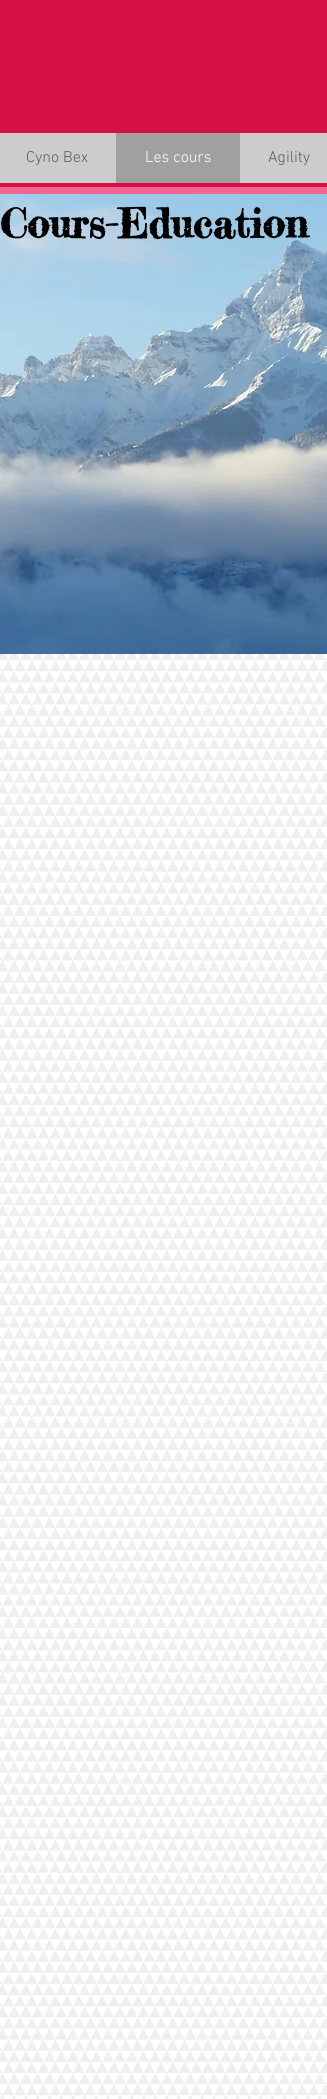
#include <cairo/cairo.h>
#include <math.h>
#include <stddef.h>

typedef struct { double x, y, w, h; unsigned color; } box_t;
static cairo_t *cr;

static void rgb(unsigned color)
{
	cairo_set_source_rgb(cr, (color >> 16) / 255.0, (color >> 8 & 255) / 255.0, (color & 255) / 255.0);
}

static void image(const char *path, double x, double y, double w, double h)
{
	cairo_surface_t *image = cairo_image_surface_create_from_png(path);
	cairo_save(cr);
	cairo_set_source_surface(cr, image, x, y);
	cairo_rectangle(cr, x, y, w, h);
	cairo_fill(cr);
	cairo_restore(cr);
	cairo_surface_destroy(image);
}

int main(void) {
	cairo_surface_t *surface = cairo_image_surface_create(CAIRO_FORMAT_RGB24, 327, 2099);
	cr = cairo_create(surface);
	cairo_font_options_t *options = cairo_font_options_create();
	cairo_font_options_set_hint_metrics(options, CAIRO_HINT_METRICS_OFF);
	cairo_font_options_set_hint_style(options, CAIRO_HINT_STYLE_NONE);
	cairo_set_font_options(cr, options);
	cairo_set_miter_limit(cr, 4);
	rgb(0xffffff);
	cairo_paint(cr);
	{
		static const box_t items[] = {
			{0, 0, 327, 187, 0xd61043},
			{0, 187, 327, 7, 0xf2668f},
			{0, 133, 327, 50, 0xcccccc},
			{116, 133, 124, 50, 0xa0a09f},
		};
		for (size_t i = 0; i < sizeof items / sizeof *items; i++) {
			rgb(items[i].color);
			cairo_rectangle(cr, items[i].x, items[i].y, items[i].w, items[i].h);
			cairo_fill(cr);
		}
	}
	image("img/1.png", 0, 194, 327, 460);
	image("img/2.png", 0, 654, 327, 1445);
	cairo_select_font_face(cr, "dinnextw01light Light", CAIRO_FONT_SLANT_NORMAL, CAIRO_FONT_WEIGHT_NORMAL);
	cairo_set_font_size(cr, 16);
	rgb(0x605e5e);
	cairo_move_to(cr, 26, 162);
	cairo_show_text(cr, "Cyno Bex");
	rgb(0xffffff);
	cairo_move_to(cr, 145, 162);
	cairo_show_text(cr, "Les cours");
	rgb(0x605e5e);
	cairo_move_to(cr, 268, 162);
	cairo_show_text(cr, "Agility");
	cairo_select_font_face(cr, "Fredericka the Great", CAIRO_FONT_SLANT_NORMAL, CAIRO_FONT_WEIGHT_BOLD);
	cairo_set_font_size(cr, 40);
	rgb(0x000000);
	cairo_move_to(cr, 0, 238);
	cairo_show_text(cr, "Cours-Education");
	cairo_surface_write_to_png(surface, "page.png");
	cairo_font_options_destroy(options);
	cairo_destroy(cr);
	cairo_surface_destroy(surface);
	return 0;
}
